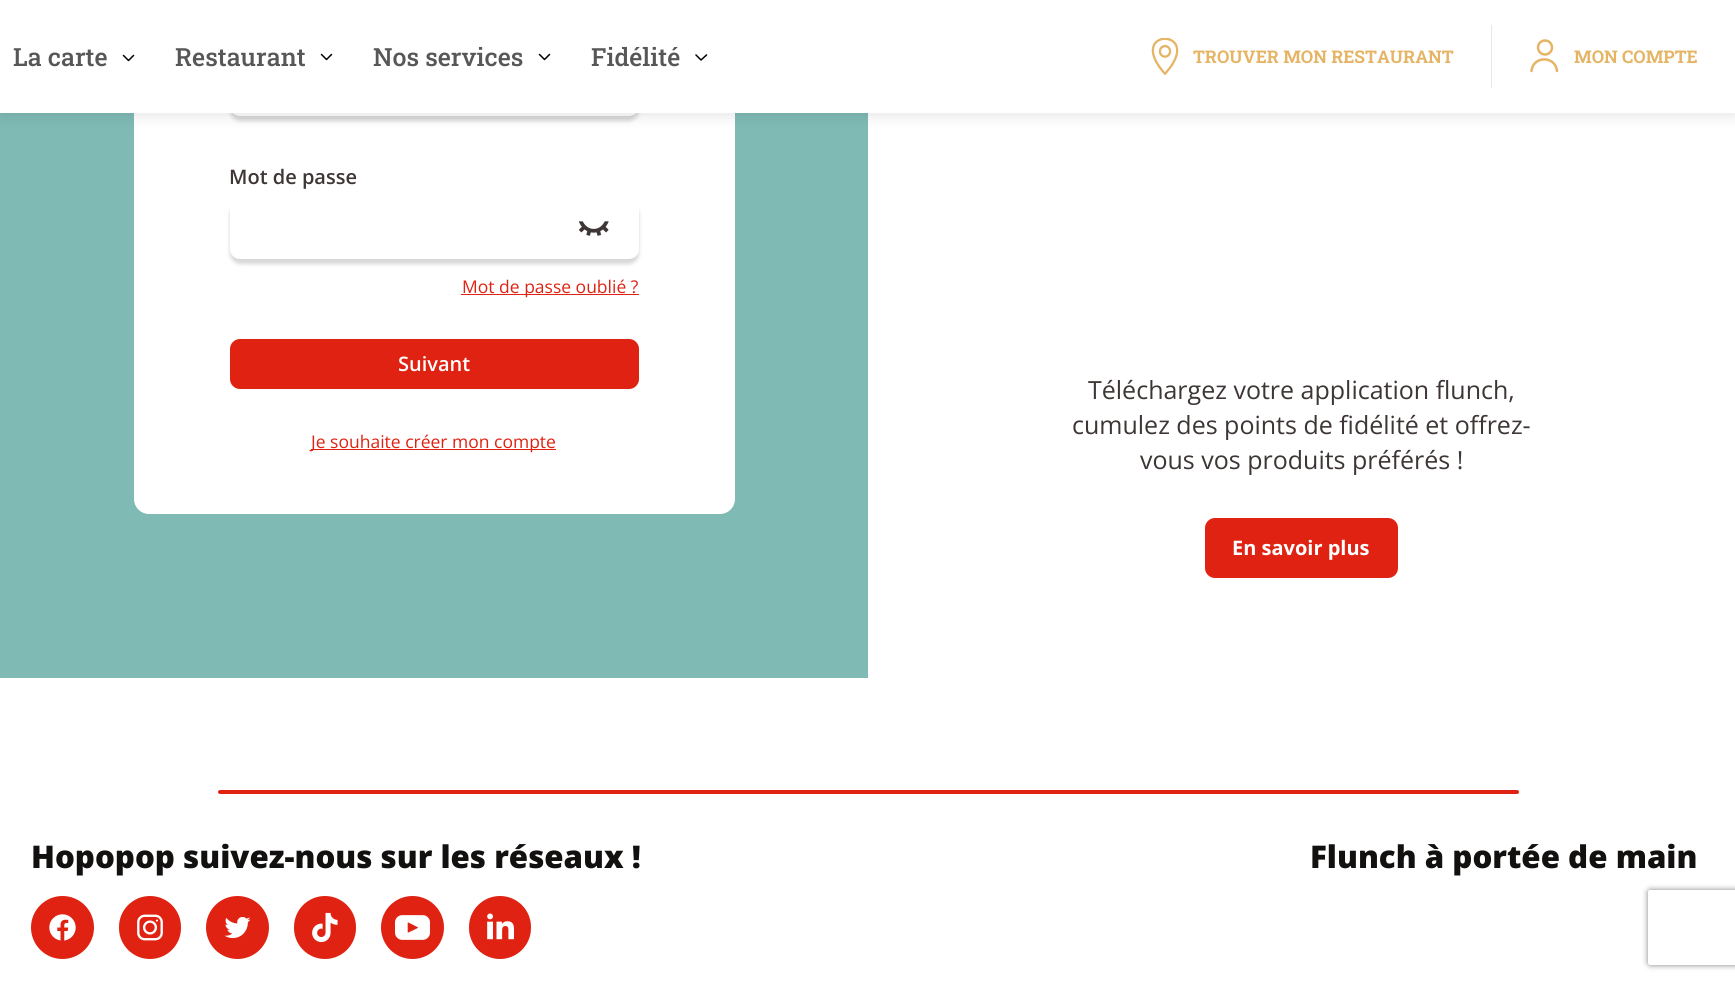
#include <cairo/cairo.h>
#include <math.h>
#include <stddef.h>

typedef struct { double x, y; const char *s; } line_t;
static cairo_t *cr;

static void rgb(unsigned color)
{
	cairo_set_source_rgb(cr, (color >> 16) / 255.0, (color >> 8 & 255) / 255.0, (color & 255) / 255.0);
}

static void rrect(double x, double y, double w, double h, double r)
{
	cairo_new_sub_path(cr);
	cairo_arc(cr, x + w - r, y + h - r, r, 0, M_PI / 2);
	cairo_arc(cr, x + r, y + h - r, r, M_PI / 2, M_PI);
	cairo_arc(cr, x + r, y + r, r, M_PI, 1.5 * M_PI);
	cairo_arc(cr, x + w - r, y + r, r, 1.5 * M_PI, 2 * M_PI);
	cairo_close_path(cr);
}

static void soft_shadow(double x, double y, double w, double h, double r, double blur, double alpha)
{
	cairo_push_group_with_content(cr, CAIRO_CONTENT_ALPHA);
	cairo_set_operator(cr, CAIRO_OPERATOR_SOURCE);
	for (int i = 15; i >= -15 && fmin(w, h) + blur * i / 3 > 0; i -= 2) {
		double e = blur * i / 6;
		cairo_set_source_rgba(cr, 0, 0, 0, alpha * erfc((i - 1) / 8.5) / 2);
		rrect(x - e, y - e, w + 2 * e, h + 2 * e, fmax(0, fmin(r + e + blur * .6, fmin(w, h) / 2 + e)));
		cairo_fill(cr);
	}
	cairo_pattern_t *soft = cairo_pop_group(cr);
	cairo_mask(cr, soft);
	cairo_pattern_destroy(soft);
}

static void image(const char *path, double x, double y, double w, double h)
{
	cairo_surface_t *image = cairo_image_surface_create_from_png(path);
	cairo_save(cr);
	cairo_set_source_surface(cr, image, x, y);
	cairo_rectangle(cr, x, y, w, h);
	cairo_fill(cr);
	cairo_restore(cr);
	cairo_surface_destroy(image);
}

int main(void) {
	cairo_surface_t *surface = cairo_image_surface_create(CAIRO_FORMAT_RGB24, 1735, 982);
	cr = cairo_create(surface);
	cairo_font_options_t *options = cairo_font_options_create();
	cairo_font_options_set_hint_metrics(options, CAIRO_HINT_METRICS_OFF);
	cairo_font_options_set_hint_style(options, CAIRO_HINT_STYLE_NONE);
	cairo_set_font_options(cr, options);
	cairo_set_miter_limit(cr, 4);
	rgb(0xffffff);
	cairo_paint(cr);
	rgb(0x80bab5);
	cairo_rectangle(cr, 0, 113, 868, 565);
	cairo_fill(cr);
	rgb(0xffffff);
	rrect(134, -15, 601, 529, 15);
	cairo_fill(cr);
	rgb(0x000000);
	soft_shadow(230, 61, 409, 60, 10, 2, 0.16);
	rgb(0xffffff);
	rrect(230, 56, 409, 60, 10);
	cairo_fill(cr);
	rgb(0x000000);
	soft_shadow(0, -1, 1735, 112, 0, 10, 0.16);
	rgb(0xffffff);
	cairo_rectangle(cr, 0, 0, 1735, 113);
	cairo_fill(cr);
	cairo_new_path(cr);
	cairo_move_to(cr, 133.5, 55.5);
	cairo_line_to(cr, 128.5, 60.5);
	cairo_line_to(cr, 123.5, 55.5);
	rgb(0x000000);
	cairo_set_line_width(cr, 1.5);
	cairo_set_line_cap(cr, CAIRO_LINE_CAP_ROUND);
	cairo_set_line_join(cr, CAIRO_LINE_JOIN_ROUND);
	cairo_stroke(cr);
	cairo_new_path(cr);
	cairo_move_to(cr, 331.5, 54.5);
	cairo_line_to(cr, 326.5, 59.5);
	cairo_line_to(cr, 321.5, 54.5);
	cairo_stroke(cr);
	cairo_new_path(cr);
	cairo_move_to(cr, 549.5, 54.5);
	cairo_line_to(cr, 544.5, 59.5);
	cairo_line_to(cr, 539.5, 54.5);
	cairo_stroke(cr);
	cairo_new_path(cr);
	cairo_move_to(cr, 706.5, 55);
	cairo_line_to(cr, 701, 60);
	cairo_line_to(cr, 696, 55);
	cairo_stroke(cr);
	image("img/1.png", 1151, 38, 28, 37);
	rgb(0xe8e8e8);
	cairo_rectangle(cr, 1491, 25, 1, 63);
	cairo_fill(cr);
	cairo_new_path(cr);
	cairo_move_to(cr, 1531.5, 71);
	cairo_curve_to(cr, 1533, 55.5, 1555.5, 55.5, 1557, 71);
	rgb(0xe5b465);
	cairo_set_line_width(cr, 2.5);
	cairo_set_line_join(cr, CAIRO_LINE_JOIN_MITER);
	cairo_stroke(cr);
	cairo_arc(cr, 1545, 47.5, 7, 0, 2 * M_PI);
	cairo_set_line_cap(cr, CAIRO_LINE_CAP_BUTT);
	cairo_stroke(cr);
	rgb(0x000000);
	soft_shadow(230, 204, 409, 60, 10, 2, 0.16);
	rgb(0xffffff);
	rrect(230, 199, 409, 60, 10);
	cairo_fill(cr);
	image("img/2.png", 579, 221, 30, 15);
	rgb(0xdf2211);
	cairo_rectangle(cr, 461, 294, 178, 1);
	cairo_fill(cr);
	rrect(230, 339, 409, 50, 10);
	cairo_fill(cr);
	cairo_rectangle(cr, 311, 449, 245, 1);
	cairo_fill(cr);
	rrect(1205, 518, 193, 60, 10);
	cairo_fill(cr);
	rrect(218, 790, 1301, 4, 2);
	cairo_fill(cr);
	cairo_arc(cr, 62.5, 927.5, 31.5, 0, 2 * M_PI);
	cairo_fill(cr);
	image("img/3.png", 49, 914, 27, 27);
	rrect(119, 896, 62, 63, 31);
	cairo_fill(cr);
	image("img/4.png", 137, 914, 26, 27);
	cairo_arc(cr, 237.5, 927.5, 31.5, 0, 2 * M_PI);
	cairo_fill(cr);
	image("img/5.png", 224, 916, 27, 23);
	rrect(294, 896, 62, 63, 31);
	cairo_fill(cr);
	image("img/6.png", 312, 912, 26, 31);
	cairo_arc(cr, 412.5, 927.5, 31.5, 0, 2 * M_PI);
	cairo_fill(cr);
	image("img/7.png", 395, 915, 35, 25);
	rrect(469, 896, 62, 63, 31);
	cairo_fill(cr);
	image("img/8.png", 487, 913, 27, 27);
	cairo_save(cr);
	cairo_set_fill_rule(cr, CAIRO_FILL_RULE_EVEN_ODD);
	cairo_new_path(cr);
	cairo_move_to(cr, 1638, 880);
	cairo_line_to(cr, 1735, 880);
	cairo_line_to(cr, 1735, 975);
	cairo_line_to(cr, 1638, 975);
	cairo_close_path(cr);
	cairo_move_to(cr, 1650.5, 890);
	cairo_line_to(cr, 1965.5, 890);
	cairo_curve_to(cr, 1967, 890, 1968, 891, 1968, 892.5);
	cairo_line_to(cr, 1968, 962.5);
	cairo_curve_to(cr, 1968, 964, 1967, 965, 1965.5, 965);
	cairo_line_to(cr, 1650.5, 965);
	cairo_curve_to(cr, 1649, 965, 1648, 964, 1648, 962.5);
	cairo_line_to(cr, 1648, 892.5);
	cairo_curve_to(cr, 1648, 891, 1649, 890, 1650.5, 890);
	cairo_close_path(cr);
	cairo_clip(cr);
	rgb(0x808080);
	soft_shadow(1648, 890, 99, 75, 2.5, 3, 1);
	cairo_restore(cr);
	cairo_select_font_face(cr, "Roboto Slab Medium", CAIRO_FONT_SLANT_NORMAL, CAIRO_FONT_WEIGHT_NORMAL);
	cairo_set_font_size(cr, 25);
	rgb(0x575757);
	{
		static const line_t items[] = {
			{13, 66, "La carte"},
			{175, 66, "Restaurant"},
			{373, 66, "Nos services"},
			{591, 66, "Fidélité"},
		};
		for (size_t i = 0; i < sizeof items / sizeof *items; i++) {
			cairo_move_to(cr, items[i].x, items[i].y);
			cairo_show_text(cr, items[i].s);
		}
	}
	cairo_select_font_face(cr, "Roboto Slab", CAIRO_FONT_SLANT_NORMAL, CAIRO_FONT_WEIGHT_BOLD);
	cairo_set_font_size(cr, 17.5);
	rgb(0xe5b465);
	cairo_move_to(cr, 1193, 63);
	cairo_show_text(cr, "TROUVER MON RESTAURANT");
	cairo_move_to(cr, 1574, 63);
	cairo_show_text(cr, "MON COMPTE");
	cairo_select_font_face(cr, "Open Sans SemiBold", CAIRO_FONT_SLANT_NORMAL, CAIRO_FONT_WEIGHT_NORMAL);
	cairo_set_font_size(cr, 20);
	rgb(0x3d3635);
	cairo_move_to(cr, 229, 184);
	cairo_show_text(cr, "Mot de passe");
	cairo_select_font_face(cr, "Open Sans", CAIRO_FONT_SLANT_NORMAL, CAIRO_FONT_WEIGHT_NORMAL);
	cairo_set_font_size(cr, 17.5);
	rgb(0xdf2211);
	cairo_move_to(cr, 462, 293);
	cairo_show_text(cr, "Mot de passe oublié ?");
	cairo_select_font_face(cr, "Open Sans SemiBold", CAIRO_FONT_SLANT_NORMAL, CAIRO_FONT_WEIGHT_NORMAL);
	cairo_set_font_size(cr, 20);
	rgb(0xffffff);
	cairo_move_to(cr, 398, 371);
	cairo_show_text(cr, "Suivant");
	cairo_select_font_face(cr, "Open Sans", CAIRO_FONT_SLANT_NORMAL, CAIRO_FONT_WEIGHT_NORMAL);
	cairo_set_font_size(cr, 17.5);
	rgb(0xdf2211);
	cairo_move_to(cr, 311, 448);
	cairo_show_text(cr, "Je souhaite créer mon compte");
	cairo_set_font_size(cr, 25);
	rgb(0x3d3635);
	{
		static const line_t items[] = {
			{1088, 399, "Téléchargez votre application flunch,"},
			{1072, 434, "cumulez des points de fidélité et offrez-"},
			{1140, 469, "vous vos produits préférés !"},
		};
		for (size_t i = 0; i < sizeof items / sizeof *items; i++) {
			cairo_move_to(cr, items[i].x, items[i].y);
			cairo_show_text(cr, items[i].s);
		}
	}
	cairo_select_font_face(cr, "Open Sans", CAIRO_FONT_SLANT_NORMAL, CAIRO_FONT_WEIGHT_BOLD);
	cairo_set_font_size(cr, 20);
	rgb(0xffffff);
	cairo_move_to(cr, 1232, 555);
	cairo_show_text(cr, "En savoir plus");
	cairo_select_font_face(cr, "Open Sans ExtraBold", CAIRO_FONT_SLANT_NORMAL, CAIRO_FONT_WEIGHT_NORMAL);
	cairo_set_font_size(cr, 31.25);
	rgb(0x131110);
	cairo_move_to(cr, 31, 868);
	cairo_show_text(cr, "Hopopop suivez-nous sur les réseaux !");
	cairo_move_to(cr, 1310, 868);
	cairo_show_text(cr, "Flunch à portée de main");
	cairo_surface_write_to_png(surface, "page.png");
	cairo_font_options_destroy(options);
	cairo_destroy(cr);
	cairo_surface_destroy(surface);
	return 0;
}
